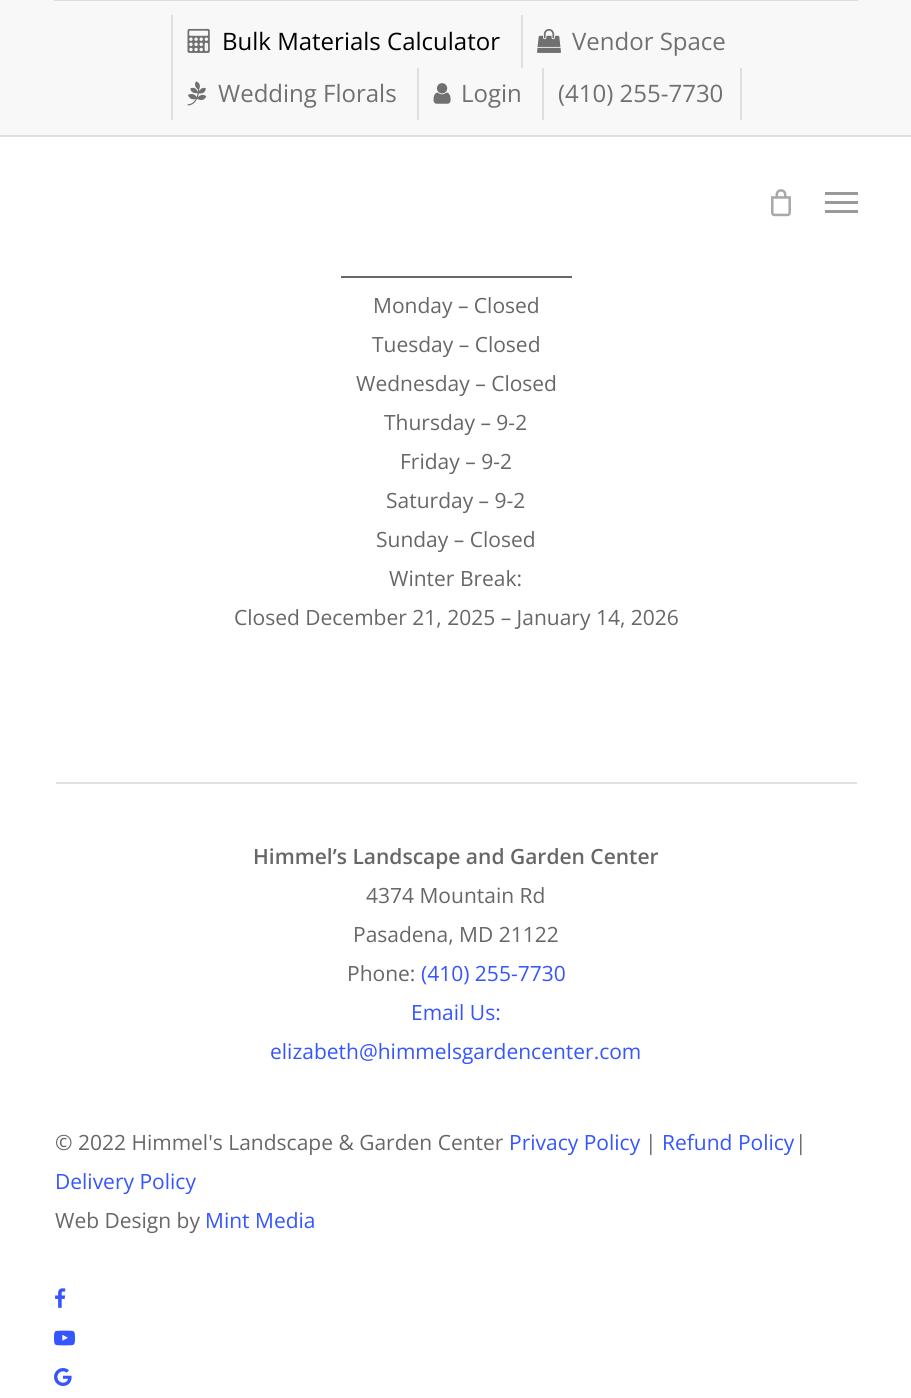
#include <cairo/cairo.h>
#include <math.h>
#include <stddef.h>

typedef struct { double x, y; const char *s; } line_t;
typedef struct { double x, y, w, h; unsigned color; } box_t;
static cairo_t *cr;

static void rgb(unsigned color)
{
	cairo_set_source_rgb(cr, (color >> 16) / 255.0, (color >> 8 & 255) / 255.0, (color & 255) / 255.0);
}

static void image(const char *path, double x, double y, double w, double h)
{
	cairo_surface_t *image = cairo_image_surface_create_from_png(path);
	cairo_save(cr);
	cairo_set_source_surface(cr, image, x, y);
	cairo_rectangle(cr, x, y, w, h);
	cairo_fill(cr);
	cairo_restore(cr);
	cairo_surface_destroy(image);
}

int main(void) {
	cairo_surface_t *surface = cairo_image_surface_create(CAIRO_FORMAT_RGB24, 911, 1398);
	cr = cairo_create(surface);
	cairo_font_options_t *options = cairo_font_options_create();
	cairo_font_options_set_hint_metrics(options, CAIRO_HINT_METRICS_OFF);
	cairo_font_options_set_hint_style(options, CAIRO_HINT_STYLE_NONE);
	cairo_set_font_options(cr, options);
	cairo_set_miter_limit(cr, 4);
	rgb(0xffffff);
	cairo_paint(cr);
	{
		static const box_t items[] = {
			{0, 0, 911, 135, 0xf8f8f8},
			{0, 135, 911, 2, 0xdfdfdf},
			{54, 0, 804, 1, 0xdddddd},
			{171, 15, 2, 105, 0xdfdfdf},
		};
		for (size_t i = 0; i < sizeof items / sizeof *items; i++) {
			rgb(items[i].color);
			cairo_rectangle(cr, items[i].x, items[i].y, items[i].w, items[i].h);
			cairo_fill(cr);
		}
	}
	image("img/1.png", 187, 28, 23, 25);
	cairo_rectangle(cr, 521, 15, 2, 53);
	cairo_fill(cr);
	image("img/2.png", 537, 29, 24, 24);
	image("img/3.png", 187, 81, 20, 25);
	cairo_rectangle(cr, 417, 68, 2, 52);
	cairo_fill(cr);
	image("img/4.png", 433, 83, 18, 21);
	cairo_rectangle(cr, 740, 68, 2, 52);
	cairo_fill(cr);
	cairo_rectangle(cr, 542, 68, 2, 52);
	cairo_fill(cr);
	image("img/5.png", 771, 189, 20, 28);
	{
		static const box_t items[] = {
			{825, 192, 33, 3, 0x999999},
			{825, 210, 33, 3, 0x999999},
			{825, 201, 33, 3, 0x999999},
			{341, 276, 231, 2, 0x676767},
			{56, 782, 801, 2, 0xe0e0e0},
		};
		for (size_t i = 0; i < sizeof items / sizeof *items; i++) {
			rgb(items[i].color);
			cairo_rectangle(cr, items[i].x, items[i].y, items[i].w, items[i].h);
			cairo_fill(cr);
		}
	}
	image("img/6.png", 55, 1288, 11, 20);
	image("img/7.png", 54, 1330, 21, 16);
	image("img/8.png", 54, 1368, 18, 18);
	cairo_select_font_face(cr, "Open Sans", CAIRO_FONT_SLANT_NORMAL, CAIRO_FONT_WEIGHT_NORMAL);
	cairo_set_font_size(cr, 24);
	rgb(0x000000);
	cairo_move_to(cr, 222, 50);
	cairo_show_text(cr, "Bulk Materials Calculator");
	rgb(0x707070);
	{
		static const line_t items[] = {
			{572, 50, "Vendor Space"},
			{218, 102, "Wedding Florals"},
			{461, 102, "Login"},
			{558, 102, "(410) 255-7730"},
		};
		for (size_t i = 0; i < sizeof items / sizeof *items; i++) {
			cairo_move_to(cr, items[i].x, items[i].y);
			cairo_show_text(cr, items[i].s);
		}
	}
	cairo_set_font_size(cr, 21);
	rgb(0x676767);
	{
		static const line_t items[] = {
			{373, 313, "Monday – Closed"},
			{372, 352, "Tuesday – Closed"},
			{356, 391, "Wednesday – Closed"},
			{384, 430, "Thursday – 9-2"},
			{400, 469, "Friday – 9-2"},
			{386, 508, "Saturday – 9-2"},
			{376, 547, "Sunday – Closed"},
			{389, 586, "Winter Break:"},
			{234, 625, "Closed December 21, 2025 – January 14, 2026"},
		};
		for (size_t i = 0; i < sizeof items / sizeof *items; i++) {
			cairo_move_to(cr, items[i].x, items[i].y);
			cairo_show_text(cr, items[i].s);
		}
	}
	cairo_select_font_face(cr, "Open Sans SemiBold", CAIRO_FONT_SLANT_NORMAL, CAIRO_FONT_WEIGHT_NORMAL);
	cairo_move_to(cr, 253, 864);
	cairo_show_text(cr, "Himmel’s Landscape and Garden Center");
	cairo_select_font_face(cr, "Open Sans", CAIRO_FONT_SLANT_NORMAL, CAIRO_FONT_WEIGHT_NORMAL);
	{
		static const line_t items[] = {
			{366, 903, "4374 Mountain Rd"},
			{353, 942, "Pasadena, MD 21122"},
			{347, 981, "Phone:"},
		};
		for (size_t i = 0; i < sizeof items / sizeof *items; i++) {
			cairo_move_to(cr, items[i].x, items[i].y);
			cairo_show_text(cr, items[i].s);
		}
	}
	rgb(0x3555ff);
	{
		static const line_t items[] = {
			{421, 981, "(410) 255-7730"},
			{411, 1020, "Email Us:"},
			{270, 1059, "elizabeth@himmelsgardencenter.com"},
		};
		for (size_t i = 0; i < sizeof items / sizeof *items; i++) {
			cairo_move_to(cr, items[i].x, items[i].y);
			cairo_show_text(cr, items[i].s);
		}
	}
	rgb(0x676767);
	cairo_move_to(cr, 55, 1150);
	cairo_show_text(cr, "© 2022 Himmel's Landscape & Garden Center");
	rgb(0x3555ff);
	cairo_move_to(cr, 509, 1150);
	cairo_show_text(cr, "Privacy Policy");
	rgb(0x676767);
	cairo_move_to(cr, 645, 1150);
	cairo_show_text(cr, "|");
	rgb(0x3555ff);
	cairo_move_to(cr, 662, 1150);
	cairo_show_text(cr, "Refund Policy");
	rgb(0x676767);
	cairo_move_to(cr, 795, 1150);
	cairo_show_text(cr, "|");
	rgb(0x3555ff);
	cairo_move_to(cr, 55, 1189);
	cairo_show_text(cr, "Delivery Policy");
	rgb(0x676767);
	cairo_move_to(cr, 55, 1228);
	cairo_show_text(cr, "Web Design by");
	rgb(0x3555ff);
	cairo_move_to(cr, 205, 1228);
	cairo_show_text(cr, "Mint Media");
	cairo_surface_write_to_png(surface, "page.png");
	cairo_font_options_destroy(options);
	cairo_destroy(cr);
	cairo_surface_destroy(surface);
	return 0;
}
